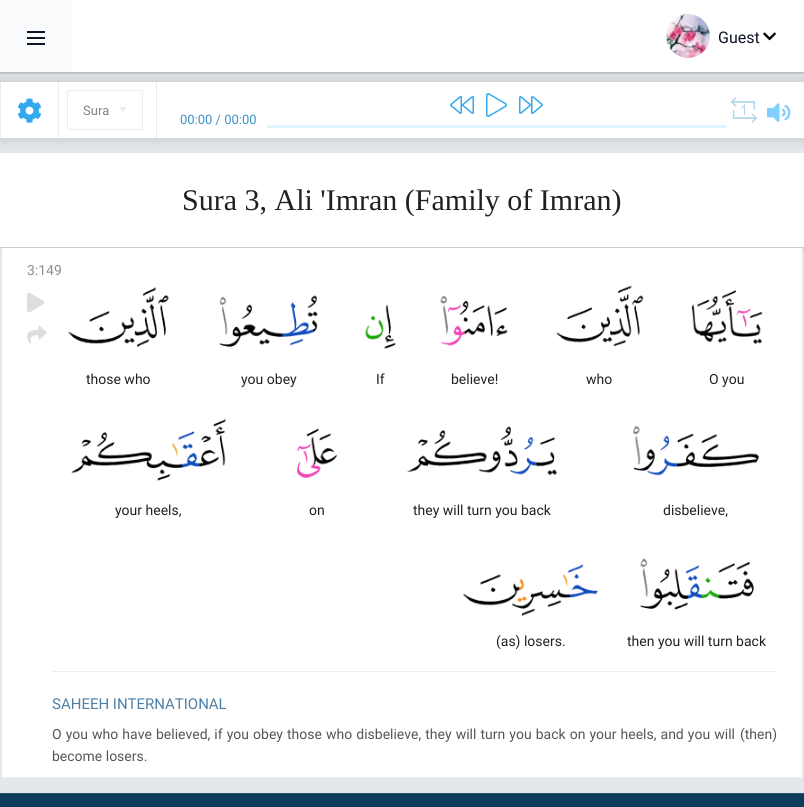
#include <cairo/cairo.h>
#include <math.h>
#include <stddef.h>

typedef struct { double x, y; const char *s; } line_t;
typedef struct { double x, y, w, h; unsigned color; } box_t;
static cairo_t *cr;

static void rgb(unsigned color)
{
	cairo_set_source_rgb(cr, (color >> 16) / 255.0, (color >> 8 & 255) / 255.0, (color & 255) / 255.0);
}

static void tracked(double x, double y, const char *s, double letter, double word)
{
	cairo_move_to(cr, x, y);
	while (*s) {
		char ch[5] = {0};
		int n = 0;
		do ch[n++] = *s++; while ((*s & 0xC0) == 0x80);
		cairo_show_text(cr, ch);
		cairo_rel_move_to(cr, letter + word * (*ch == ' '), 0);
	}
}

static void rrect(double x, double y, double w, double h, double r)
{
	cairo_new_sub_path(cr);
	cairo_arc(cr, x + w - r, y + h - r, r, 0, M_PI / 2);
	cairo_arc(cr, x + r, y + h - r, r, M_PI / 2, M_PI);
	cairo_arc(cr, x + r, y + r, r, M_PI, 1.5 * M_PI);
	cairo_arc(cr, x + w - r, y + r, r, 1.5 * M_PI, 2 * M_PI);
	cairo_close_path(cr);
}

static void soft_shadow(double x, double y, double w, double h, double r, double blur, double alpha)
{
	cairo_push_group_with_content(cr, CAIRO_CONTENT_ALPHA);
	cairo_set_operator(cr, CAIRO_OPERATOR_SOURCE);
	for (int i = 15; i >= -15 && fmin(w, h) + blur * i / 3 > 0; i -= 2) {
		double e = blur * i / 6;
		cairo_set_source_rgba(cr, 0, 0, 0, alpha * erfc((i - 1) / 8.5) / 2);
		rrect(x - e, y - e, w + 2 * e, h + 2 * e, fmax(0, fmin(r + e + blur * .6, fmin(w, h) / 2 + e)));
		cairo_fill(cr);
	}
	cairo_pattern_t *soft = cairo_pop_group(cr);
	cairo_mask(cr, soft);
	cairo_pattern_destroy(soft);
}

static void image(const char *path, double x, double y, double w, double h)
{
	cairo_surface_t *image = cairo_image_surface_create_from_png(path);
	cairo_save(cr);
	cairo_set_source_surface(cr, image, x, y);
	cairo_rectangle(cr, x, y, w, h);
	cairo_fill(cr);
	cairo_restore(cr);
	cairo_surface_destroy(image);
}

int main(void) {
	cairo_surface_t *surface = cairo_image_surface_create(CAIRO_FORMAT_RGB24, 804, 807);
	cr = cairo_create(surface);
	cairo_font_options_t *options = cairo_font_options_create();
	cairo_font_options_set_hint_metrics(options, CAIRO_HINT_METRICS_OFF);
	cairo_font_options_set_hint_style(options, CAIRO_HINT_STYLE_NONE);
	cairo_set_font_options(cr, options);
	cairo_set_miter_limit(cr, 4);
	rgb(0xe5e8eb);
	cairo_paint(cr);
	rgb(0x000000);
	soft_shadow(0, 1, 804, 72, 0, 1, 0.2);
	rgb(0xaaaaaa);
	soft_shadow(0, 1, 804, 72, 0, 2, 0.5);
	rgb(0x000000);
	soft_shadow(1, 154, 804, 95, 0, 0.5, 0.1);
	rgb(0xffffff);
	cairo_rectangle(cr, 0, 153, 804, 94);
	cairo_fill(cr);
	rgb(0x000000);
	soft_shadow(-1, 81, 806, 58, 0, 7.5, 0.15);
	{
		static const box_t items[] = {
			{72, 0, 732, 72, 0xffffff},
			{0, 0, 72, 72, 0xfafbfc},
			{27, 31, 18, 2, 0x0d1322},
			{27, 37, 18, 2, 0x0d1322},
			{27, 43, 18, 2, 0x0d1322},
		};
		for (size_t i = 0; i < sizeof items / sizeof *items; i++) {
			rgb(items[i].color);
			cairo_rectangle(cr, items[i].x, items[i].y, items[i].w, items[i].h);
			cairo_fill(cr);
		}
	}
	image("img/1.png", 666, 14, 44, 44);
	image("img/2.png", 763, 32, 13, 9);
	{
		static const box_t items[] = {
			{1, 82, 803, 56, 0xffffff},
			{58, 82, 1, 56, 0xececec},
			{0, 82, 1, 56, 0xececec},
		};
		for (size_t i = 0; i < sizeof items / sizeof *items; i++) {
			rgb(items[i].color);
			cairo_rectangle(cr, items[i].x, items[i].y, items[i].w, items[i].h);
			cairo_fill(cr);
		}
	}
	image("img/3.png", 17, 98, 25, 25);
	rrect(67.5, 90.5, 75, 39, 1.5);
	cairo_set_line_width(cr, 1);
	cairo_stroke(cr);
	cairo_new_path(cr);
	cairo_move_to(cr, 119, 107);
	cairo_line_to(cr, 127, 107);
	cairo_line_to(cr, 123, 112);
	cairo_close_path(cr);
	cairo_fill(cr);
	cairo_rectangle(cr, 156, 82, 1, 56);
	cairo_fill(cr);
	image("img/4.png", 450, 96, 24, 18);
	image("img/5.png", 486, 93, 21, 24);
	image("img/6.png", 519, 96, 24, 18);
	rgb(0xe0f5ff);
	cairo_rectangle(cr, 267, 125, 460, 3);
	cairo_fill(cr);
	image("img/7.png", 731, 97, 26, 26);
	image("img/8.png", 767, 103, 24, 19);
	{
		static const box_t items[] = {
			{0, 247, 804, 1, 0xcccccc},
			{2, 248, 800, 529, 0xffffff},
			{2, 777, 800, 1, 0xeeeeee},
		};
		for (size_t i = 0; i < sizeof items / sizeof *items; i++) {
			rgb(items[i].color);
			cairo_rectangle(cr, items[i].x, items[i].y, items[i].w, items[i].h);
			cairo_fill(cr);
		}
	}
	image("img/9.png", 27, 292, 18, 21);
	image("img/10.png", 27, 325, 20, 19);
	image("img/11.png", 68, 287, 101, 60);
	image("img/12.png", 219, 295, 99, 52);
	image("img/13.png", 365, 304, 31, 45);
	image("img/14.png", 440, 295, 68, 51);
	image("img/15.png", 556, 285, 88, 61);
	image("img/16.png", 691, 290, 72, 55);
	image("img/17.png", 71, 418, 155, 63);
	image("img/18.png", 297, 428, 40, 50);
	image("img/19.png", 407, 426, 150, 50);
	image("img/20.png", 633, 425, 126, 51);
	image("img/21.png", 463, 564, 135, 52);
	image("img/22.png", 640, 558, 114, 52);
	{
		static const box_t items[] = {
			{52, 671, 725, 1, 0xeeeeee},
			{0, 794, 804, 13, 0x0e3c5c},
			{0, 793, 804, 1, 0x27506d},
		};
		for (size_t i = 0; i < sizeof items / sizeof *items; i++) {
			rgb(items[i].color);
			cairo_rectangle(cr, items[i].x, items[i].y, items[i].w, items[i].h);
			cairo_fill(cr);
		}
	}
	cairo_select_font_face(cr, "Roboto", CAIRO_FONT_SLANT_NORMAL, CAIRO_FONT_WEIGHT_NORMAL);
	cairo_set_font_size(cr, 16);
	rgb(0x0d1322);
	cairo_move_to(cr, 718, 43);
	cairo_show_text(cr, "Guest");
	cairo_set_font_size(cr, 13);
	rgb(0x828282);
	cairo_move_to(cr, 83, 115);
	cairo_show_text(cr, "Sura");
	rgb(0x3993c9);
	cairo_move_to(cr, 180, 124);
	cairo_show_text(cr, "00:00 / 00:00");
	cairo_select_font_face(cr, "Liberation Serif", CAIRO_FONT_SLANT_NORMAL, CAIRO_FONT_WEIGHT_NORMAL);
	cairo_set_font_size(cr, 30);
	rgb(0x202020);
	cairo_move_to(cr, 182, 210);
	cairo_show_text(cr, "Sura 3, Ali 'Imran (Family of Imran)");
	cairo_select_font_face(cr, "Roboto", CAIRO_FONT_SLANT_NORMAL, CAIRO_FONT_WEIGHT_NORMAL);
	cairo_set_font_size(cr, 14);
	rgb(0x8c8c8c);
	cairo_move_to(cr, 27, 275);
	cairo_show_text(cr, "3:149");
	rgb(0x202020);
	{
		static const line_t items[] = {
			{86, 384, "those who"},
			{241, 384, "you obey"},
			{376, 384, "If"},
			{451, 384, "believe!"},
			{586, 384, "who"},
			{709, 384, "O you"},
			{115, 515, "your heels,"},
			{309, 515, "on"},
			{413, 515, "they will turn you back"},
			{663, 515, "disbelieve,"},
			{496, 646, "(as) losers."},
			{627, 646, "then you will turn back"},
		};
		for (size_t i = 0; i < sizeof items / sizeof *items; i++) {
			cairo_move_to(cr, items[i].x, items[i].y);
			cairo_show_text(cr, items[i].s);
		}
	}
	cairo_set_font_size(cr, 15);
	rgb(0x4d7fa6);
	cairo_move_to(cr, 52, 709);
	cairo_show_text(cr, "SAHEEH INTERNATIONAL");
	cairo_set_font_size(cr, 14);
	rgb(0x555555);
	tracked(52, 739, "O you who have believed, if you obey those who disbelieve, they will turn you back on your heels, and you will", 0, 0.6);
	cairo_move_to(cr, 740, 739);
	cairo_show_text(cr, "(then)");
	cairo_move_to(cr, 52, 761);
	cairo_show_text(cr, "become losers.");
	cairo_surface_write_to_png(surface, "page.png");
	cairo_font_options_destroy(options);
	cairo_destroy(cr);
	cairo_surface_destroy(surface);
	return 0;
}
